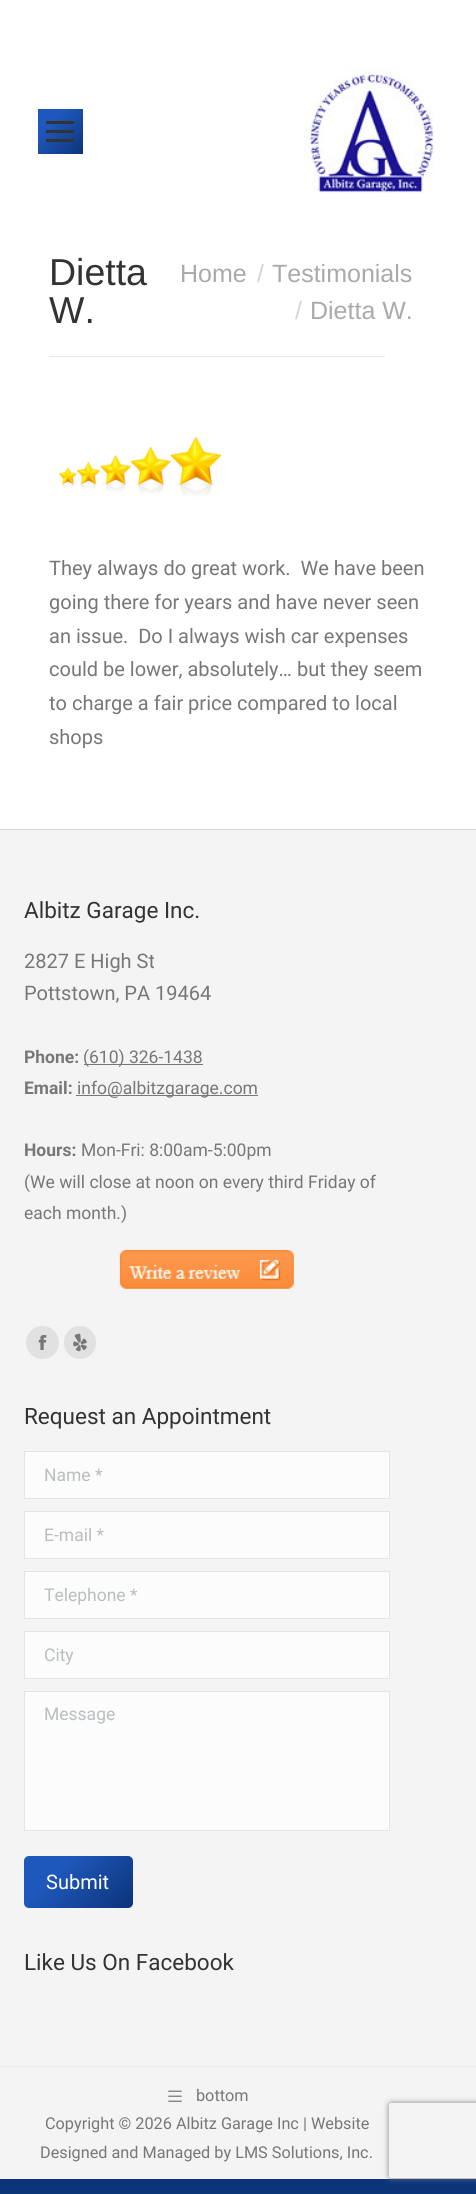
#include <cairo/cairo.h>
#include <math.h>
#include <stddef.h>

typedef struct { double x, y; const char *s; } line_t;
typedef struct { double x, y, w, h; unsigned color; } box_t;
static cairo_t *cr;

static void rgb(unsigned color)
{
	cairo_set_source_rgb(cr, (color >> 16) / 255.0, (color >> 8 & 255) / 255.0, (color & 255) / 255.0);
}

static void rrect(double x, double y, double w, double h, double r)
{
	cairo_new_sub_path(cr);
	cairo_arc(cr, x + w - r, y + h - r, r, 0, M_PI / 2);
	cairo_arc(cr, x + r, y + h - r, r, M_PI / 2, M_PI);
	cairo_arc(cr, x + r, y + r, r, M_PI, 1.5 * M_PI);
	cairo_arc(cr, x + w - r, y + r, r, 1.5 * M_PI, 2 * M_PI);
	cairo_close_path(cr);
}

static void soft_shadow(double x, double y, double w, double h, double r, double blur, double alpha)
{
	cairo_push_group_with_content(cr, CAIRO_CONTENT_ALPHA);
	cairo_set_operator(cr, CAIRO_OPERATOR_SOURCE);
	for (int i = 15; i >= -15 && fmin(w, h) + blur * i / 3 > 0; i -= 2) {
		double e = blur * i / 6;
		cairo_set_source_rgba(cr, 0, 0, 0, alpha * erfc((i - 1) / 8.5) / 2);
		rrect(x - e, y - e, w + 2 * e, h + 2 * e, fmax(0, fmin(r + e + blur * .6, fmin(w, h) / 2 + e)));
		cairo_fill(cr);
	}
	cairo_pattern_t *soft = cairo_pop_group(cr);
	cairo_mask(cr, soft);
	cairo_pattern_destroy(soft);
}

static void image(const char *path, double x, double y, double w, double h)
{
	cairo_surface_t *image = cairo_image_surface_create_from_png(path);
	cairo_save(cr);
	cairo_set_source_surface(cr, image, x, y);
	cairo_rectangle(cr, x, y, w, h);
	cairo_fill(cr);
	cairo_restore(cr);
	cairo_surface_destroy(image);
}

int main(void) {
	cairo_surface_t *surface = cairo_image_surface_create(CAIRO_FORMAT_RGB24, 476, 2194);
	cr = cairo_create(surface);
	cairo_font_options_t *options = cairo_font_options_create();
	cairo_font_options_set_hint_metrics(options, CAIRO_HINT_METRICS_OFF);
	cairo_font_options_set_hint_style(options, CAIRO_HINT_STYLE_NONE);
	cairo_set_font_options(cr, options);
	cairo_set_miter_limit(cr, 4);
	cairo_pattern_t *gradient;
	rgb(0x0c3479);
	cairo_paint(cr);
	rgb(0xffffff);
	cairo_rectangle(cr, 0, 0, 476, 829);
	cairo_fill(cr);
	gradient = cairo_pattern_create_linear(38, 109, 83, 154);
	cairo_pattern_add_color_stop_rgba(gradient, 0.3, 0.118, 0.345, 0.737, 1);
	cairo_pattern_add_color_stop_rgba(gradient, 1, 0.047, 0.204, 0.475, 1);
	cairo_set_source(cr, gradient);
	cairo_pattern_destroy(gradient);
	cairo_rectangle(cr, 38, 109, 45, 45);
	cairo_fill(cr);
	{
		static const box_t items[] = {
			{46, 121, 28, 3, 0x333333},
			{46, 130, 28, 3, 0x333333},
			{46, 139, 28, 3, 0x333333},
		};
		for (size_t i = 0; i < sizeof items / sizeof *items; i++) {
			rgb(items[i].color);
			cairo_rectangle(cr, items[i].x, items[i].y, items[i].w, items[i].h);
			cairo_fill(cr);
		}
	}
	image("img/1.png", 304, 68, 130, 126);
	rgb(0xe9e9e9);
	cairo_rectangle(cr, 49, 356, 336, 1);
	cairo_fill(cr);
	image("img/2.png", 58, 437, 164, 60);
	{
		static const box_t items[] = {
			{0, 830, 476, 1349, 0xf4f4f4},
			{0, 829, 476, 1, 0xd6d6d6},
			{84, 1064, 119, 1, 0x777777},
			{76, 1095, 182, 1, 0x777777},
		};
		for (size_t i = 0; i < sizeof items / sizeof *items; i++) {
			rgb(items[i].color);
			cairo_rectangle(cr, items[i].x, items[i].y, items[i].w, items[i].h);
			cairo_fill(cr);
		}
	}
	image("img/3.png", 119, 1249, 175, 40);
	rgb(0xe1e1e1);
	cairo_arc(cr, 42.5, 1342.5, 16.5, 0, 2 * M_PI);
	cairo_fill(cr);
	image("img/4.png", 38, 1335, 9, 15);
	rrect(64, 1326, 32, 33, 16);
	cairo_fill(cr);
	image("img/5.png", 73, 1333, 14, 19);
	rgb(0xfcfcfc);
	cairo_rectangle(cr, 24.5, 1451.5, 365, 47);
	cairo_fill_preserve(cr);
	rgb(0xe4e5e7);
	cairo_set_line_width(cr, 1);
	cairo_stroke(cr);
	rgb(0xfcfcfc);
	cairo_rectangle(cr, 24.5, 1511.5, 365, 47);
	cairo_fill_preserve(cr);
	rgb(0xe4e5e7);
	cairo_stroke(cr);
	rgb(0xfcfcfc);
	cairo_rectangle(cr, 24.5, 1571.5, 365, 47);
	cairo_fill_preserve(cr);
	rgb(0xe4e5e7);
	cairo_stroke(cr);
	rgb(0xfcfcfc);
	cairo_rectangle(cr, 24.5, 1631.5, 365, 47);
	cairo_fill_preserve(cr);
	rgb(0xe4e5e7);
	cairo_stroke(cr);
	rgb(0xfcfcfc);
	cairo_rectangle(cr, 24.5, 1691.5, 365, 139);
	cairo_fill_preserve(cr);
	rgb(0xe4e5e7);
	cairo_stroke(cr);
	gradient = cairo_pattern_create_linear(38, 1842, 118, 1922);
	cairo_pattern_add_color_stop_rgba(gradient, 0.3, 0.118, 0.345, 0.737, 1);
	cairo_pattern_add_color_stop_rgba(gradient, 1, 0.047, 0.204, 0.475, 1);
	cairo_set_source(cr, gradient);
	cairo_pattern_destroy(gradient);
	rrect(24, 1856, 109, 52, 5);
	cairo_fill(cr);
	rgb(0xeaeaea);
	cairo_rectangle(cr, 0, 2066, 476, 1);
	cairo_fill(cr);
	image("img/6.png", 168, 2090, 14, 12);
	cairo_save(cr);
	cairo_set_fill_rule(cr, CAIRO_FILL_RULE_EVEN_ODD);
	cairo_new_path(cr);
	cairo_move_to(cr, 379, 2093);
	cairo_line_to(cr, 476, 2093);
	cairo_line_to(cr, 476, 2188);
	cairo_line_to(cr, 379, 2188);
	cairo_close_path(cr);
	cairo_move_to(cr, 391.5, 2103);
	cairo_line_to(cr, 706.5, 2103);
	cairo_curve_to(cr, 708, 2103, 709, 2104, 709, 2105.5);
	cairo_line_to(cr, 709, 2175.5);
	cairo_curve_to(cr, 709, 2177, 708, 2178, 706.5, 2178);
	cairo_line_to(cr, 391.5, 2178);
	cairo_curve_to(cr, 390, 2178, 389, 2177, 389, 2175.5);
	cairo_line_to(cr, 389, 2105.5);
	cairo_curve_to(cr, 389, 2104, 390, 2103, 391.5, 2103);
	cairo_close_path(cr);
	cairo_clip(cr);
	rgb(0x808080);
	soft_shadow(389, 2103, 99, 75, 2.5, 3, 1);
	cairo_restore(cr);
	cairo_select_font_face(cr, "Liberation Sans", CAIRO_FONT_SLANT_NORMAL, CAIRO_FONT_WEIGHT_NORMAL);
	cairo_set_font_size(cr, 37.5);
	rgb(0x333333);
	cairo_move_to(cr, 49, 285);
	cairo_show_text(cr, "Dietta");
	cairo_move_to(cr, 49, 323);
	cairo_show_text(cr, "W.");
	cairo_set_font_size(cr, 25);
	rgb(0xaaaaaa);
	cairo_move_to(cr, 180, 282);
	cairo_show_text(cr, "Home");
	rgb(0xd5d5d5);
	cairo_move_to(cr, 257, 282);
	cairo_show_text(cr, "/");
	rgb(0xaaaaaa);
	cairo_move_to(cr, 272, 282);
	cairo_show_text(cr, "Testimonials");
	rgb(0xd5d5d5);
	cairo_move_to(cr, 295, 319);
	cairo_show_text(cr, "/");
	rgb(0xaaaaaa);
	cairo_move_to(cr, 310, 319);
	cairo_show_text(cr, "Dietta W.");
	cairo_select_font_face(cr, "Roboto", CAIRO_FONT_SLANT_NORMAL, CAIRO_FONT_WEIGHT_NORMAL);
	cairo_set_font_size(cr, 20);
	rgb(0x777777);
	{
		static const line_t items[] = {
			{49, 575, "They always do great work.  We have been"},
			{49, 609, "going there for years and have never seen"},
			{49, 643, "an issue.  Do I always wish car expenses"},
			{49, 676, "could be lower, absolutely… but they seem"},
			{49, 710, "to charge a fair price compared to local"},
			{49, 744, "shops"},
		};
		for (size_t i = 0; i < sizeof items / sizeof *items; i++) {
			cairo_move_to(cr, items[i].x, items[i].y);
			cairo_show_text(cr, items[i].s);
		}
	}
	cairo_set_font_size(cr, 22.5);
	rgb(0x333333);
	cairo_move_to(cr, 24, 918);
	cairo_show_text(cr, "Albitz Garage Inc.");
	cairo_set_font_size(cr, 20);
	rgb(0x777777);
	cairo_move_to(cr, 24, 968);
	cairo_show_text(cr, "2827 E High St");
	cairo_move_to(cr, 24, 1000);
	cairo_show_text(cr, "Pottstown, PA 19464");
	cairo_select_font_face(cr, "Roboto", CAIRO_FONT_SLANT_NORMAL, CAIRO_FONT_WEIGHT_BOLD);
	cairo_set_font_size(cr, 17.5);
	cairo_move_to(cr, 24, 1063);
	cairo_show_text(cr, "Phone:");
	cairo_select_font_face(cr, "Roboto", CAIRO_FONT_SLANT_NORMAL, CAIRO_FONT_WEIGHT_NORMAL);
	cairo_move_to(cr, 83, 1063);
	cairo_show_text(cr, "(610) 326-1438");
	cairo_select_font_face(cr, "Roboto", CAIRO_FONT_SLANT_NORMAL, CAIRO_FONT_WEIGHT_BOLD);
	cairo_move_to(cr, 24, 1094);
	cairo_show_text(cr, "Email:");
	cairo_select_font_face(cr, "Roboto", CAIRO_FONT_SLANT_NORMAL, CAIRO_FONT_WEIGHT_NORMAL);
	cairo_move_to(cr, 77, 1094);
	cairo_show_text(cr, "info@albitzgarage.com");
	cairo_select_font_face(cr, "Roboto", CAIRO_FONT_SLANT_NORMAL, CAIRO_FONT_WEIGHT_BOLD);
	cairo_move_to(cr, 24, 1156);
	cairo_show_text(cr, "Hours:");
	cairo_select_font_face(cr, "Roboto", CAIRO_FONT_SLANT_NORMAL, CAIRO_FONT_WEIGHT_NORMAL);
	{
		static const line_t items[] = {
			{81, 1156, "Mon-Fri: 8:00am-5:00pm"},
			{24, 1188, "(We will close at noon on every third Friday of"},
			{24, 1219, "each month.)"},
		};
		for (size_t i = 0; i < sizeof items / sizeof *items; i++) {
			cairo_move_to(cr, items[i].x, items[i].y);
			cairo_show_text(cr, items[i].s);
		}
	}
	cairo_set_font_size(cr, 22.5);
	rgb(0x333333);
	cairo_move_to(cr, 24, 1424);
	cairo_show_text(cr, "Request an Appointment");
	cairo_set_font_size(cr, 17.5);
	rgb(0xbabdc1);
	{
		static const line_t items[] = {
			{44, 1481, "Name *"},
			{44, 1541, "E-mail *"},
			{44, 1601, "Telephone *"},
			{44, 1661, "City"},
			{44, 1720, "Message"},
		};
		for (size_t i = 0; i < sizeof items / sizeof *items; i++) {
			cairo_move_to(cr, items[i].x, items[i].y);
			cairo_show_text(cr, items[i].s);
		}
	}
	cairo_set_font_size(cr, 20);
	rgb(0xffffff);
	cairo_move_to(cr, 46, 1889);
	cairo_show_text(cr, "Submit");
	cairo_set_font_size(cr, 22.5);
	rgb(0x333333);
	cairo_move_to(cr, 24, 1970);
	cairo_show_text(cr, "Like Us On Facebook");
	cairo_set_font_size(cr, 16.25);
	rgb(0x777777);
	{
		static const line_t items[] = {
			{196, 2101, "bottom"},
			{45, 2129, "Copyright © 2026 Albitz Garage Inc | Website"},
			{40, 2158, "Designed and Managed by LMS Solutions, Inc."},
		};
		for (size_t i = 0; i < sizeof items / sizeof *items; i++) {
			cairo_move_to(cr, items[i].x, items[i].y);
			cairo_show_text(cr, items[i].s);
		}
	}
	cairo_surface_write_to_png(surface, "page.png");
	cairo_font_options_destroy(options);
	cairo_destroy(cr);
	cairo_surface_destroy(surface);
	return 0;
}
